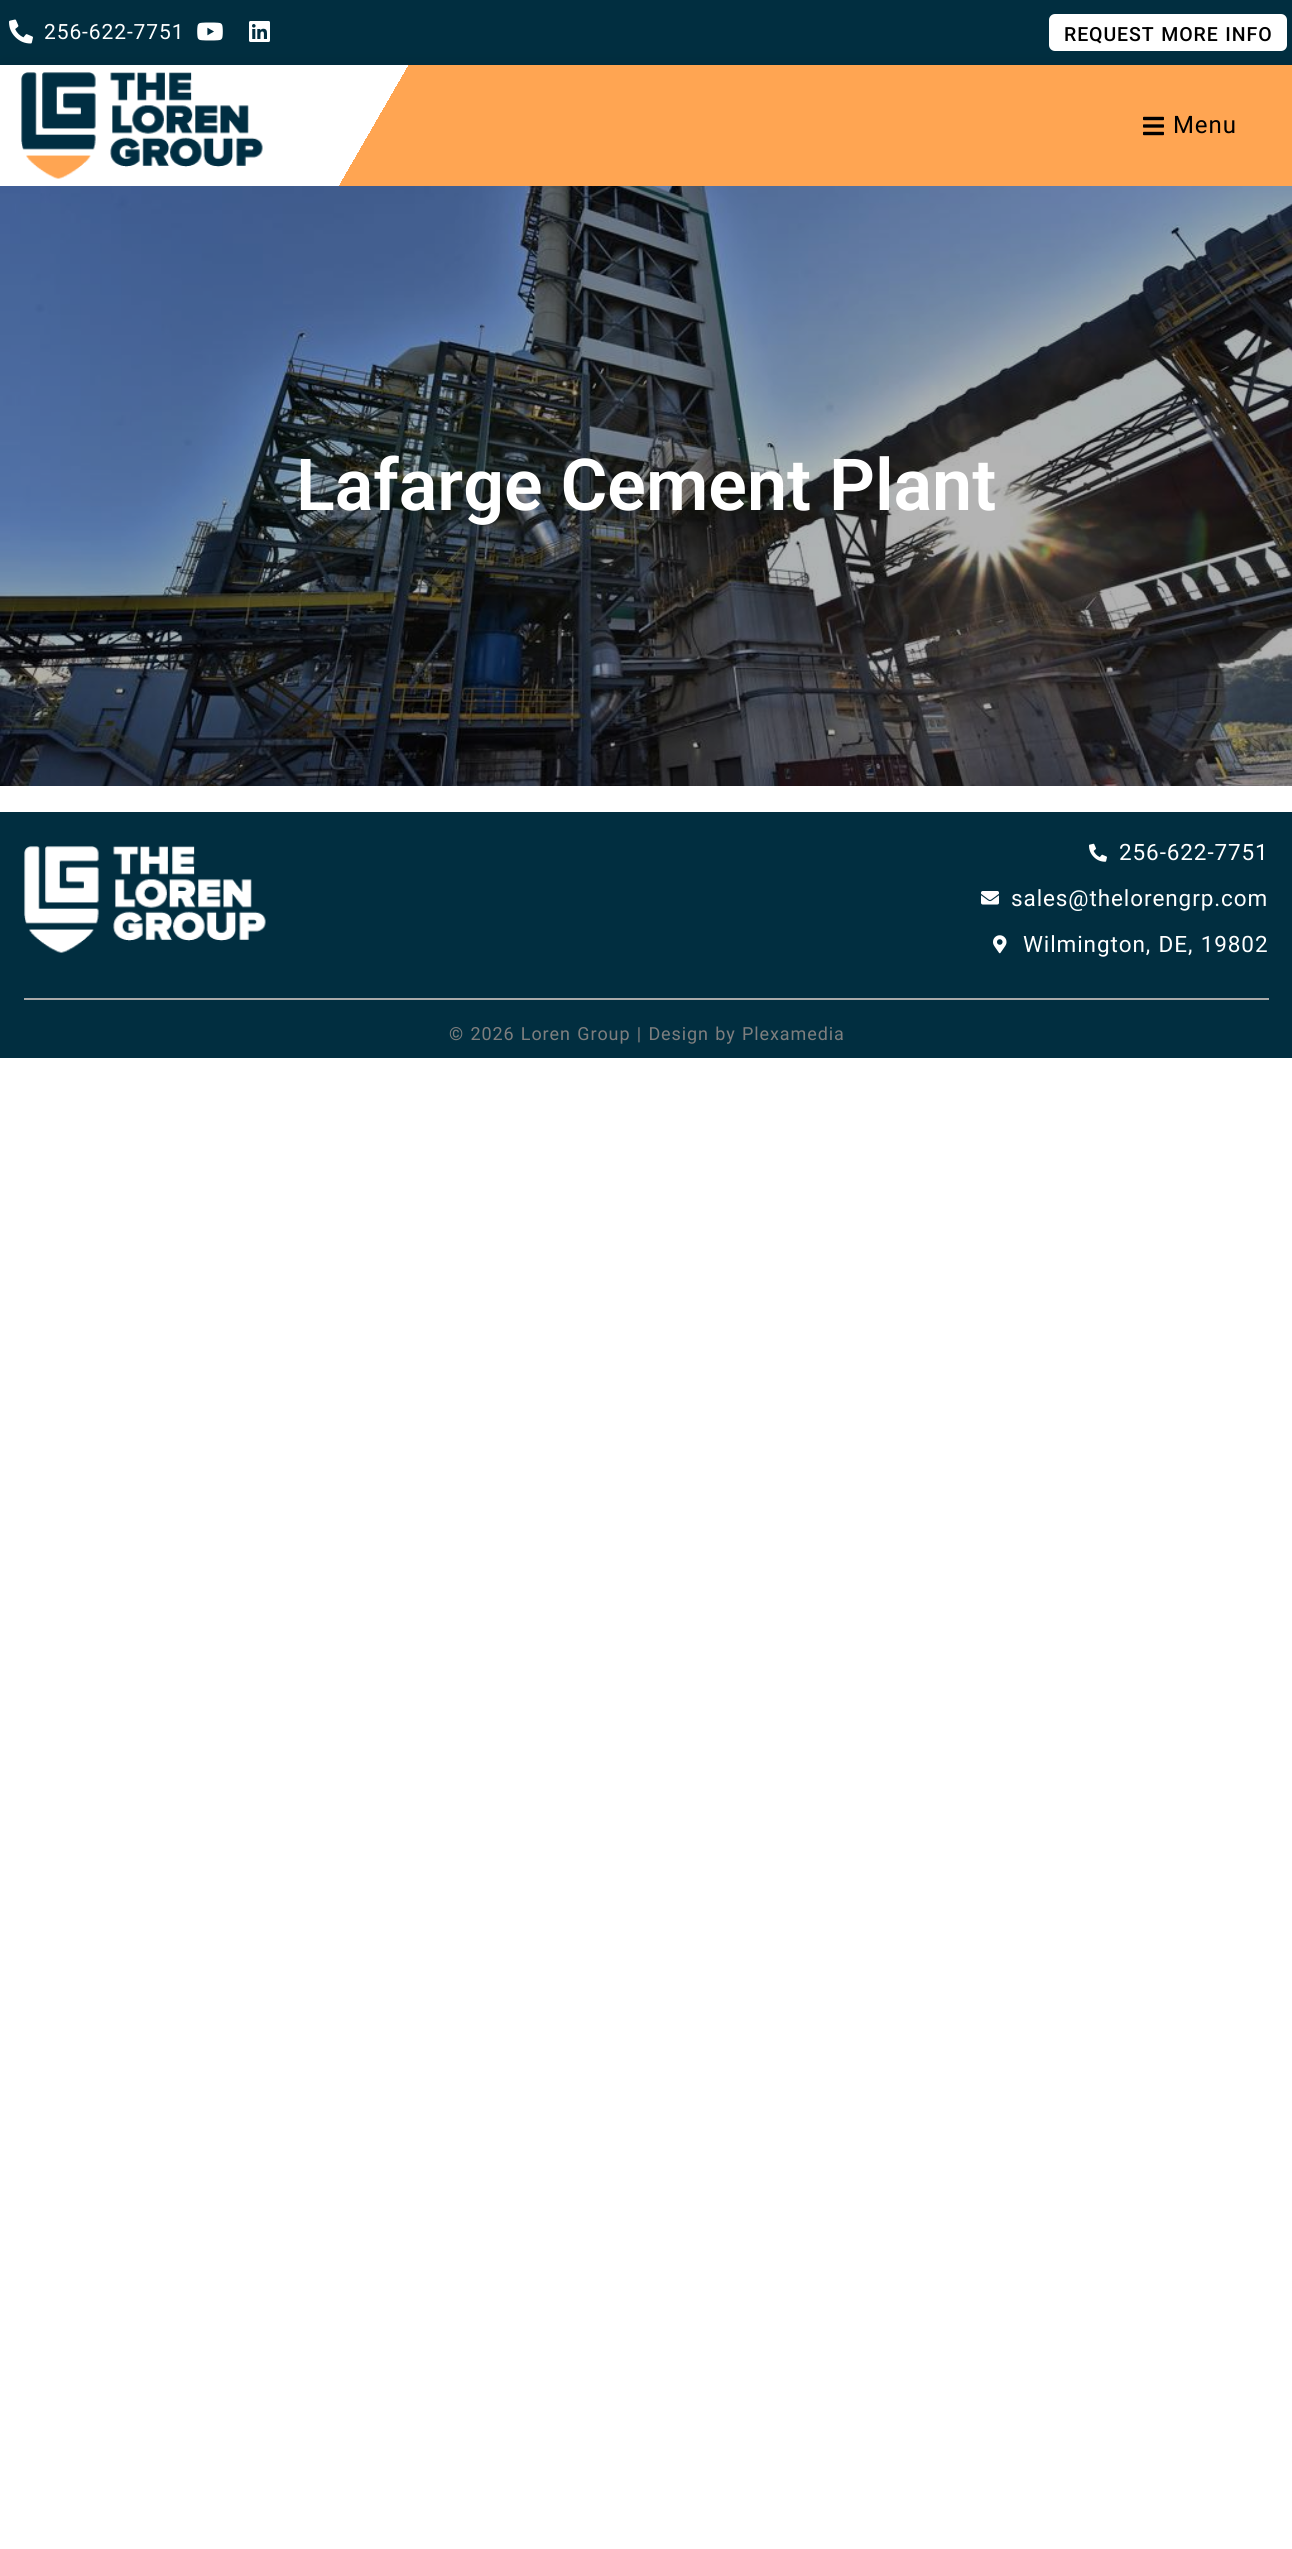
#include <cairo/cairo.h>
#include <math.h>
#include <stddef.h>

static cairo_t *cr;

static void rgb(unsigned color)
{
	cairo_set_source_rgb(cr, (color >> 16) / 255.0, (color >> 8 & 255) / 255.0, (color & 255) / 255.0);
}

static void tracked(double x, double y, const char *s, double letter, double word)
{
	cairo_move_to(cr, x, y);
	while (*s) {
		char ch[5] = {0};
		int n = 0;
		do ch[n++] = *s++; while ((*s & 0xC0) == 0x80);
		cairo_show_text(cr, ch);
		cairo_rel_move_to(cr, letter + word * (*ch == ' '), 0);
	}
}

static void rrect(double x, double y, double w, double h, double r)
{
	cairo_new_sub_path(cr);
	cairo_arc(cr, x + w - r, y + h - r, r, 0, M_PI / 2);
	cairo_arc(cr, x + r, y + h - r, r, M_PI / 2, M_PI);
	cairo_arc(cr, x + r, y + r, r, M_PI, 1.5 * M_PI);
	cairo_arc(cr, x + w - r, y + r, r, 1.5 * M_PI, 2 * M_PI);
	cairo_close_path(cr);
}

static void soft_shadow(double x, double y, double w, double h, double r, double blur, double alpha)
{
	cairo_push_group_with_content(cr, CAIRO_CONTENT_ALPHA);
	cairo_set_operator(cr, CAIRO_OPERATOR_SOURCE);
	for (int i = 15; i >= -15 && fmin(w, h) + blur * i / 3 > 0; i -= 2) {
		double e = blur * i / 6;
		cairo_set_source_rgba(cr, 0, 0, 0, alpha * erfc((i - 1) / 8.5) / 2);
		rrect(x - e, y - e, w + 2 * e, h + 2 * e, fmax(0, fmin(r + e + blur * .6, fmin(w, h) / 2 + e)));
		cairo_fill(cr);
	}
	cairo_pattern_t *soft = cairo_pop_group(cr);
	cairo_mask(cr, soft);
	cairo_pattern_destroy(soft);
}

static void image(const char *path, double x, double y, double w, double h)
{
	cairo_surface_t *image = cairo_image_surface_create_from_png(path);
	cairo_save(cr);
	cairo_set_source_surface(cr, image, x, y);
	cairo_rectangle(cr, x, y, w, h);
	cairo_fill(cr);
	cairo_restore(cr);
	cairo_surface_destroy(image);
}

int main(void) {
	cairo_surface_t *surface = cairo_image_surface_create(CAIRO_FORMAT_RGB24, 1292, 2549);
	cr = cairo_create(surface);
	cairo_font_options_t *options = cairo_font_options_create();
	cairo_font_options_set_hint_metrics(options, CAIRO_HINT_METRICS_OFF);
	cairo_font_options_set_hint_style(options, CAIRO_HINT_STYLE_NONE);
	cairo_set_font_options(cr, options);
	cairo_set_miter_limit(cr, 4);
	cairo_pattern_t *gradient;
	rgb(0xffffff);
	cairo_paint(cr);
	rgb(0x012e40);
	cairo_rectangle(cr, 0, 0, 1292, 65);
	cairo_fill(cr);
	image("img/1.png", 9, 19, 24, 25);
	image("img/2.png", 197, 22, 26, 19);
	image("img/3.png", 249, 21, 21, 21);
	rgb(0xffffff);
	rrect(1049, 14, 238, 37, 6);
	cairo_fill(cr);
	rgb(0x000000);
	soft_shadow(2, 66, 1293, 122, 0, 7.5, 0.1);
	gradient = cairo_pattern_create_linear(135, -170, 1158, 420);
	cairo_pattern_add_color_stop_rgba(gradient, 0.3, 1, 1, 1, 1);
	cairo_pattern_add_color_stop_rgba(gradient, 0.3, 1, 0.647, 0.322, 1);
	cairo_set_source(cr, gradient);
	cairo_pattern_destroy(gradient);
	cairo_rectangle(cr, 0, 65, 1292, 121);
	cairo_fill(cr);
	image("img/4.png", 21, 72, 242, 107);
	image("img/5.png", 1143, 116, 21, 20);
	image("img/6.png", 0, 186, 1292, 600);
	rgb(0x012e40);
	cairo_rectangle(cr, 0, 812, 1292, 246);
	cairo_fill(cr);
	image("img/7.png", 24, 846, 242, 107);
	image("img/8.png", 1089, 843, 18, 19);
	image("img/9.png", 981, 891, 18, 14);
	image("img/10.png", 993, 935, 14, 19);
	rgb(0xaaaaaa);
	cairo_rectangle(cr, 24, 998, 1245, 2);
	cairo_fill(cr);
	cairo_select_font_face(cr, "Roboto", CAIRO_FONT_SLANT_NORMAL, CAIRO_FONT_WEIGHT_NORMAL);
	cairo_set_font_size(cr, 21);
	rgb(0xffffff);
	tracked(44, 39, "256-622-7751", 0.9, 0);
	cairo_select_font_face(cr, "Roboto Medium", CAIRO_FONT_SLANT_NORMAL, CAIRO_FONT_WEIGHT_NORMAL);
	cairo_set_font_size(cr, 19.5);
	rgb(0x000000);
	tracked(1064, 41, "REQUEST MORE INFO", 0.9, 1);
	cairo_select_font_face(cr, "Roboto", CAIRO_FONT_SLANT_NORMAL, CAIRO_FONT_WEIGHT_NORMAL);
	cairo_set_font_size(cr, 24);
	tracked(1173, 133, "Menu", 0.9, 0);
	cairo_select_font_face(cr, "Roboto SemiBold", CAIRO_FONT_SLANT_NORMAL, CAIRO_FONT_WEIGHT_NORMAL);
	cairo_set_font_size(cr, 71.75);
	rgb(0xffffff);
	cairo_move_to(cr, 296, 510);
	cairo_show_text(cr, "Lafarge Cement Plant");
	cairo_select_font_face(cr, "Roboto", CAIRO_FONT_SLANT_NORMAL, CAIRO_FONT_WEIGHT_NORMAL);
	cairo_set_font_size(cr, 22.5);
	tracked(1119, 860, "256-622-7751", 0.9, 0);
	tracked(1011, 906, "sales@thelorengrp.com", 0.9, 0);
	tracked(1023, 952, "Wilmington, DE, 19802", 0.9, 1);
	cairo_set_font_size(cr, 18);
	rgb(0x7e7e7e);
	tracked(449, 1040, "© 2026 Loren Group | Design by Plexamedia", 0.9, 1);
	cairo_surface_write_to_png(surface, "page.png");
	cairo_font_options_destroy(options);
	cairo_destroy(cr);
	cairo_surface_destroy(surface);
	return 0;
}
